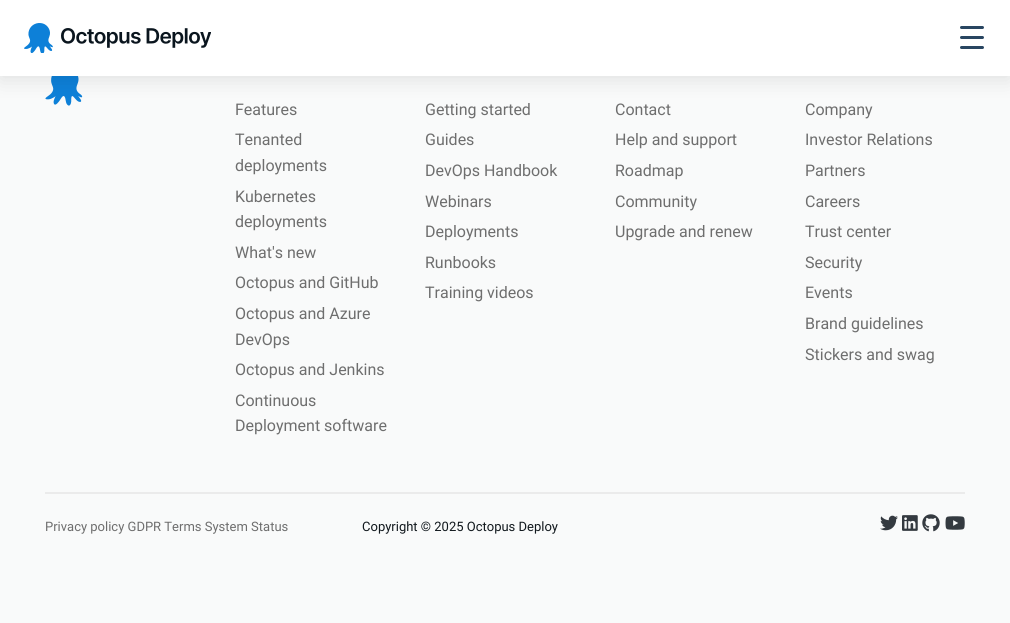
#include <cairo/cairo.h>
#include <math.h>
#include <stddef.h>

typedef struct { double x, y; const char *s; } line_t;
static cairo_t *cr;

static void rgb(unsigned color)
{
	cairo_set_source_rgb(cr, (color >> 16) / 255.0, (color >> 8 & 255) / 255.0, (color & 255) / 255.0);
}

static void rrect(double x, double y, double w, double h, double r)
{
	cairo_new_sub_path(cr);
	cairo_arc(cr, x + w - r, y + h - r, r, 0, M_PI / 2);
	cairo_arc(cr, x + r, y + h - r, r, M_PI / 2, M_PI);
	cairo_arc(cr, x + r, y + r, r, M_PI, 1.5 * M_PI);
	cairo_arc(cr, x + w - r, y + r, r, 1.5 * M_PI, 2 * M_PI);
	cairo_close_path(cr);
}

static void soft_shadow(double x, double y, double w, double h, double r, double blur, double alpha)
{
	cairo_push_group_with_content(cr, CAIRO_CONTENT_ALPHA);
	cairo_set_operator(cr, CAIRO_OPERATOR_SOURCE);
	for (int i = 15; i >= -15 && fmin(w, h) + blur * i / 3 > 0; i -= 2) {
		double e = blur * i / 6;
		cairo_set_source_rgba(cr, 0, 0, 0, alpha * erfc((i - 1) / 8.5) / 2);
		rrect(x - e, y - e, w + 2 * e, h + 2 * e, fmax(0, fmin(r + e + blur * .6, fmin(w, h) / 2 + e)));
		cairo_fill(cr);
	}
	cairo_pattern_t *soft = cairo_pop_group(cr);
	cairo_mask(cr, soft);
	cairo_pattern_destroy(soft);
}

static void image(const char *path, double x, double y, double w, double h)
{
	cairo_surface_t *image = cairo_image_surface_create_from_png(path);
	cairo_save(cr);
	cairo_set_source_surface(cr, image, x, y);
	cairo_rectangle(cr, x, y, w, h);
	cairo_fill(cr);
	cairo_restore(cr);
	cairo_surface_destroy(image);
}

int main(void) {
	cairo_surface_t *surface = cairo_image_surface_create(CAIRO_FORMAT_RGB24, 1010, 623);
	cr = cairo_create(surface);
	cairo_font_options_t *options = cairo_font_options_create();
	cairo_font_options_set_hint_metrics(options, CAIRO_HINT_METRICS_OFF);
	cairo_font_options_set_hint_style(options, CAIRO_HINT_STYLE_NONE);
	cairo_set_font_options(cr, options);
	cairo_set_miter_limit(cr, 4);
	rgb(0xf9fafa);
	cairo_paint(cr);
	image("img/3.png", 45, 76, 38, 30);
	rgb(0x000000);
	soft_shadow(0, 4, 1010, 76, 0, 10, 0.1);
	rgb(0xffffff);
	cairo_rectangle(cr, 0, 0, 1010, 76);
	cairo_fill(cr);
	image("img/1.png", 24, 23, 29, 30);
	image("img/2.png", 61, 28, 150, 20);
	rgb(0x294661);
	rrect(960, 26, 24, 3, 1.5);
	cairo_fill(cr);
	rrect(960, 36, 24, 3, 1.5);
	cairo_fill(cr);
	rrect(960, 46, 24, 3, 1.5);
	cairo_fill(cr);
	rgb(0xebebeb);
	cairo_rectangle(cr, 45, 492, 920, 2);
	cairo_fill(cr);
	image("img/4.png", 880, 515, 18, 16);
	image("img/5.png", 902, 515, 16, 16);
	image("img/6.png", 922, 514, 18, 18);
	image("img/7.png", 945, 516, 20, 14);
	cairo_select_font_face(cr, "Roboto", CAIRO_FONT_SLANT_NORMAL, CAIRO_FONT_WEIGHT_NORMAL);
	cairo_set_font_size(cr, 16);
	rgb(0x6e6e6e);
	{
		static const line_t items[] = {
			{235, 115, "Features"},
			{235, 145, "Tenanted"},
			{235, 171, "deployments"},
			{235, 202, "Kubernetes"},
			{235, 227, "deployments"},
			{235, 258, "What's new"},
			{235, 288, "Octopus and GitHub"},
			{235, 319, "Octopus and Azure"},
			{235, 345, "DevOps"},
			{235, 375, "Octopus and Jenkins"},
			{235, 406, "Continuous"},
			{235, 431, "Deployment software"},
			{425, 115, "Getting started"},
			{425, 145, "Guides"},
			{425, 176, "DevOps Handbook"},
			{425, 207, "Webinars"},
			{425, 237, "Deployments"},
			{425, 268, "Runbooks"},
			{425, 298, "Training videos"},
			{615, 115, "Contact"},
			{615, 145, "Help and support"},
			{615, 176, "Roadmap"},
			{615, 207, "Community"},
			{615, 237, "Upgrade and renew"},
			{805, 115, "Company"},
			{805, 145, "Investor Relations"},
			{805, 176, "Partners"},
			{805, 207, "Careers"},
			{805, 237, "Trust center"},
			{805, 268, "Security"},
			{805, 298, "Events"},
			{805, 329, "Brand guidelines"},
			{805, 360, "Stickers and swag"},
		};
		for (size_t i = 0; i < sizeof items / sizeof *items; i++) {
			cairo_move_to(cr, items[i].x, items[i].y);
			cairo_show_text(cr, items[i].s);
		}
	}
	cairo_set_font_size(cr, 13);
	cairo_move_to(cr, 45, 531);
	cairo_show_text(cr, "Privacy policy GDPR Terms System Status");
	rgb(0x11181d);
	cairo_move_to(cr, 362, 531);
	cairo_show_text(cr, "Copyright © 2025 Octopus Deploy");
	cairo_surface_write_to_png(surface, "page.png");
	cairo_font_options_destroy(options);
	cairo_destroy(cr);
	cairo_surface_destroy(surface);
	return 0;
}
